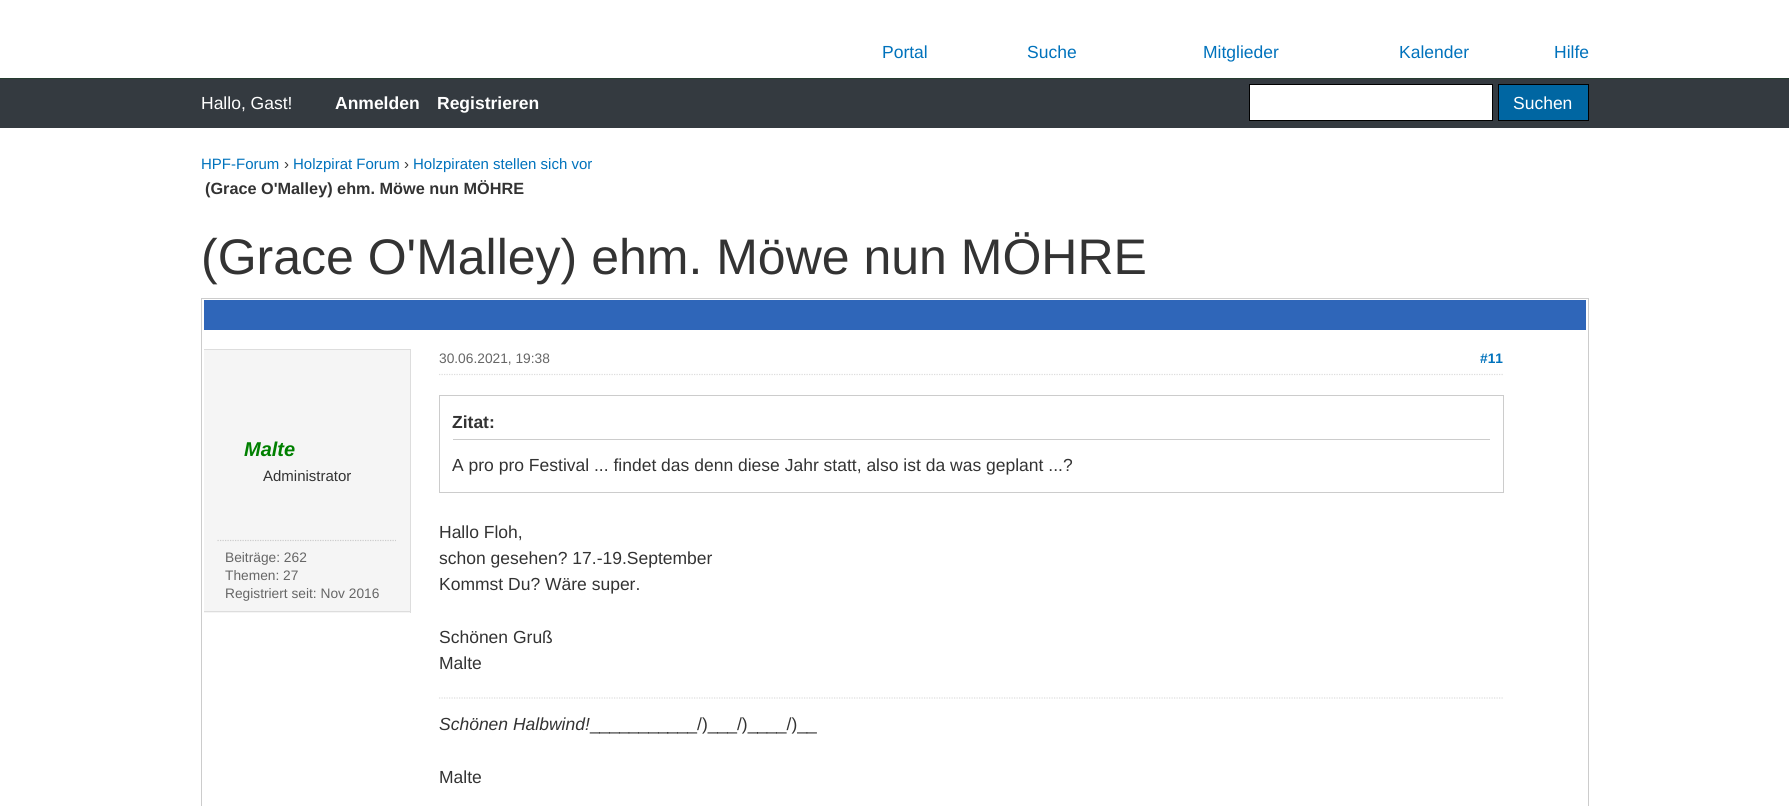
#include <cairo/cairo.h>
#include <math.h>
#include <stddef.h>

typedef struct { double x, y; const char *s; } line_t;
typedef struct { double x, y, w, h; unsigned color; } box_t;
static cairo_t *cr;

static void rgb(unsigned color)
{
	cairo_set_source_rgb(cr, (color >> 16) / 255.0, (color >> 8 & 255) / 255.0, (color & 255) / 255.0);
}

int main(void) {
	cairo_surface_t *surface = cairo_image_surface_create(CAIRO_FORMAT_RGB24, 1789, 806);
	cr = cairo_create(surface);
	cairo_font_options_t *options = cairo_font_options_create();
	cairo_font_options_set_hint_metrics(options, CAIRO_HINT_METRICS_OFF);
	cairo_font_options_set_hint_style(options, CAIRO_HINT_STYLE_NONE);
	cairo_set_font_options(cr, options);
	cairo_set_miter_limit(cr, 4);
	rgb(0xffffff);
	cairo_paint(cr);
	rgb(0x263c30);
	cairo_rectangle(cr, 0, 78, 1789, 1);
	cairo_fill(cr);
	rgb(0x343a40);
	cairo_rectangle(cr, 0, 79, 1789, 49);
	cairo_fill(cr);
	rgb(0xffffff);
	cairo_rectangle(cr, 1249.5, 84.5, 243, 36);
	cairo_fill_preserve(cr);
	rgb(0x000000);
	cairo_set_line_width(cr, 1);
	cairo_stroke(cr);
	rgb(0x0066a2);
	cairo_rectangle(cr, 1498.5, 84.5, 90, 36);
	cairo_fill_preserve(cr);
	rgb(0x000000);
	cairo_stroke(cr);
	cairo_rectangle(cr, 201.5, 298.5, 1387, 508);
	rgb(0xcccccc);
	cairo_stroke(cr);
	{
		static const box_t items[] = {
			{204, 300, 1382, 30, 0x2f66b9},
			{204, 350, 206, 263, 0xf5f5f5},
			{204, 349, 207, 1, 0xdddddd},
			{410, 349, 1, 264, 0xdddddd},
			{204, 611, 207, 1, 0xdddddd},
		};
		for (size_t i = 0; i < sizeof items / sizeof *items; i++) {
			rgb(items[i].color);
			cairo_rectangle(cr, items[i].x, items[i].y, items[i].w, items[i].h);
			cairo_fill(cr);
		}
	}
	cairo_new_path(cr);
	cairo_move_to(cr, 217.5, 540.5);
	cairo_line_to(cr, 396, 540.5);
	rgb(0xcccccc);
	cairo_set_line_width(cr, 1.2);
	cairo_set_dash(cr, (double[]){1.25, 1.25}, 2, 0);
	cairo_stroke(cr);
	cairo_new_path(cr);
	cairo_move_to(cr, 439, 374.5);
	cairo_line_to(cr, 1504, 374.5);
	rgb(0xdddddd);
	cairo_stroke(cr);
	cairo_rectangle(cr, 439.5, 395.5, 1064, 97);
	rgb(0xcccccc);
	cairo_set_line_width(cr, 1);
	cairo_set_dash(cr, NULL, 0, 0);
	cairo_stroke(cr);
	cairo_rectangle(cr, 453, 439, 1037, 1);
	cairo_fill(cr);
	cairo_new_path(cr);
	cairo_move_to(cr, 439, 698);
	cairo_line_to(cr, 1504, 698);
	rgb(0xdddddd);
	cairo_set_line_width(cr, 1.2);
	cairo_set_dash(cr, (double[]){1.25, 1.25}, 2, 0);
	cairo_stroke(cr);
	cairo_select_font_face(cr, "Liberation Sans", CAIRO_FONT_SLANT_NORMAL, CAIRO_FONT_WEIGHT_NORMAL);
	cairo_set_font_size(cr, 17.5);
	rgb(0x0072bc);
	{
		static const line_t items[] = {
			{882, 58, "Portal"},
			{1027, 58, "Suche"},
			{1203, 58, "Mitglieder"},
			{1399, 58, "Kalender"},
			{1554, 58, "Hilfe"},
		};
		for (size_t i = 0; i < sizeof items / sizeof *items; i++) {
			cairo_move_to(cr, items[i].x, items[i].y);
			cairo_show_text(cr, items[i].s);
		}
	}
	rgb(0xffffff);
	cairo_move_to(cr, 201, 109);
	cairo_show_text(cr, "Hallo, Gast!");
	cairo_select_font_face(cr, "Liberation Sans", CAIRO_FONT_SLANT_NORMAL, CAIRO_FONT_WEIGHT_BOLD);
	cairo_move_to(cr, 335, 109);
	cairo_show_text(cr, "Anmelden");
	cairo_move_to(cr, 437, 109);
	cairo_show_text(cr, "Registrieren");
	cairo_select_font_face(cr, "Liberation Sans", CAIRO_FONT_SLANT_NORMAL, CAIRO_FONT_WEIGHT_NORMAL);
	cairo_move_to(cr, 1513, 109);
	cairo_show_text(cr, "Suchen");
	cairo_set_font_size(cr, 15);
	rgb(0x0072bc);
	cairo_move_to(cr, 201, 169);
	cairo_show_text(cr, "HPF-Forum");
	rgb(0x333333);
	cairo_move_to(cr, 284, 169);
	cairo_show_text(cr, "›");
	rgb(0x0072bc);
	cairo_move_to(cr, 293, 169);
	cairo_show_text(cr, "Holzpirat Forum");
	rgb(0x333333);
	cairo_move_to(cr, 404, 169);
	cairo_show_text(cr, "›");
	rgb(0x0072bc);
	cairo_move_to(cr, 413, 169);
	cairo_show_text(cr, "Holzpiraten stellen sich vor");
	cairo_select_font_face(cr, "Liberation Sans", CAIRO_FONT_SLANT_NORMAL, CAIRO_FONT_WEIGHT_BOLD);
	cairo_set_font_size(cr, 16.25);
	rgb(0x333333);
	cairo_move_to(cr, 205, 194);
	cairo_show_text(cr, "(Grace O'Malley) ehm. Möwe nun MÖHRE");
	cairo_select_font_face(cr, "Liberation Sans", CAIRO_FONT_SLANT_NORMAL, CAIRO_FONT_WEIGHT_NORMAL);
	cairo_set_font_size(cr, 50);
	cairo_move_to(cr, 201, 274);
	cairo_show_text(cr, "(Grace O'Malley) ehm. Möwe nun MÖHRE");
	cairo_select_font_face(cr, "Liberation Sans", CAIRO_FONT_SLANT_ITALIC, CAIRO_FONT_WEIGHT_BOLD);
	cairo_set_font_size(cr, 20);
	rgb(0x008000);
	cairo_move_to(cr, 244, 456);
	cairo_show_text(cr, "Malte");
	cairo_select_font_face(cr, "Liberation Sans", CAIRO_FONT_SLANT_NORMAL, CAIRO_FONT_WEIGHT_NORMAL);
	cairo_set_font_size(cr, 15);
	rgb(0x333333);
	cairo_move_to(cr, 263, 481);
	cairo_show_text(cr, "Administrator");
	cairo_set_font_size(cr, 13.75);
	rgb(0x666666);
	{
		static const line_t items[] = {
			{225, 562, "Beiträge: 262"},
			{225, 580, "Themen: 27"},
			{225, 598, "Registriert seit: Nov 2016"},
			{439, 363, "30.06.2021, 19:38"},
		};
		for (size_t i = 0; i < sizeof items / sizeof *items; i++) {
			cairo_move_to(cr, items[i].x, items[i].y);
			cairo_show_text(cr, items[i].s);
		}
	}
	cairo_select_font_face(cr, "Liberation Sans", CAIRO_FONT_SLANT_NORMAL, CAIRO_FONT_WEIGHT_BOLD);
	rgb(0x0072bc);
	cairo_move_to(cr, 1480, 363);
	cairo_show_text(cr, "#11");
	cairo_set_font_size(cr, 17.5);
	rgb(0x333333);
	cairo_move_to(cr, 452, 428);
	cairo_show_text(cr, "Zitat:");
	cairo_select_font_face(cr, "Liberation Sans", CAIRO_FONT_SLANT_NORMAL, CAIRO_FONT_WEIGHT_NORMAL);
	{
		static const line_t items[] = {
			{452, 471, "A pro pro Festival ... findet das denn diese Jahr statt, also ist da was geplant ...?"},
			{439, 538, "Hallo Floh,"},
			{439, 564, "schon gesehen? 17.-19.September"},
			{439, 590, "Kommst Du? Wäre super."},
			{439, 643, "Schönen Gruß"},
			{439, 669, "Malte"},
		};
		for (size_t i = 0; i < sizeof items / sizeof *items; i++) {
			cairo_move_to(cr, items[i].x, items[i].y);
			cairo_show_text(cr, items[i].s);
		}
	}
	cairo_select_font_face(cr, "Liberation Sans", CAIRO_FONT_SLANT_ITALIC, CAIRO_FONT_WEIGHT_NORMAL);
	cairo_move_to(cr, 439, 730);
	cairo_show_text(cr, "Schönen Halbwind!");
	cairo_select_font_face(cr, "Liberation Sans", CAIRO_FONT_SLANT_NORMAL, CAIRO_FONT_WEIGHT_NORMAL);
	cairo_move_to(cr, 590, 730);
	cairo_show_text(cr, "___________/)___/)____/)__");
	cairo_move_to(cr, 439, 783);
	cairo_show_text(cr, "Malte");
	cairo_surface_write_to_png(surface, "page.png");
	cairo_font_options_destroy(options);
	cairo_destroy(cr);
	cairo_surface_destroy(surface);
	return 0;
}
